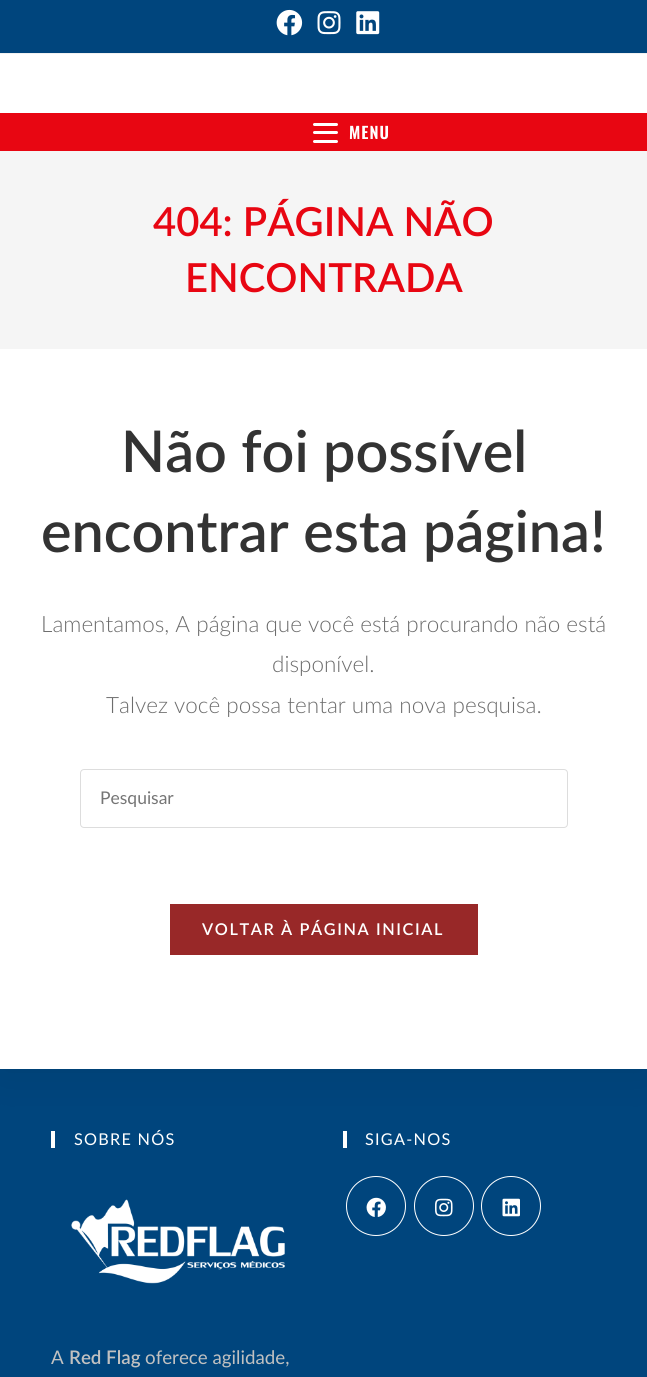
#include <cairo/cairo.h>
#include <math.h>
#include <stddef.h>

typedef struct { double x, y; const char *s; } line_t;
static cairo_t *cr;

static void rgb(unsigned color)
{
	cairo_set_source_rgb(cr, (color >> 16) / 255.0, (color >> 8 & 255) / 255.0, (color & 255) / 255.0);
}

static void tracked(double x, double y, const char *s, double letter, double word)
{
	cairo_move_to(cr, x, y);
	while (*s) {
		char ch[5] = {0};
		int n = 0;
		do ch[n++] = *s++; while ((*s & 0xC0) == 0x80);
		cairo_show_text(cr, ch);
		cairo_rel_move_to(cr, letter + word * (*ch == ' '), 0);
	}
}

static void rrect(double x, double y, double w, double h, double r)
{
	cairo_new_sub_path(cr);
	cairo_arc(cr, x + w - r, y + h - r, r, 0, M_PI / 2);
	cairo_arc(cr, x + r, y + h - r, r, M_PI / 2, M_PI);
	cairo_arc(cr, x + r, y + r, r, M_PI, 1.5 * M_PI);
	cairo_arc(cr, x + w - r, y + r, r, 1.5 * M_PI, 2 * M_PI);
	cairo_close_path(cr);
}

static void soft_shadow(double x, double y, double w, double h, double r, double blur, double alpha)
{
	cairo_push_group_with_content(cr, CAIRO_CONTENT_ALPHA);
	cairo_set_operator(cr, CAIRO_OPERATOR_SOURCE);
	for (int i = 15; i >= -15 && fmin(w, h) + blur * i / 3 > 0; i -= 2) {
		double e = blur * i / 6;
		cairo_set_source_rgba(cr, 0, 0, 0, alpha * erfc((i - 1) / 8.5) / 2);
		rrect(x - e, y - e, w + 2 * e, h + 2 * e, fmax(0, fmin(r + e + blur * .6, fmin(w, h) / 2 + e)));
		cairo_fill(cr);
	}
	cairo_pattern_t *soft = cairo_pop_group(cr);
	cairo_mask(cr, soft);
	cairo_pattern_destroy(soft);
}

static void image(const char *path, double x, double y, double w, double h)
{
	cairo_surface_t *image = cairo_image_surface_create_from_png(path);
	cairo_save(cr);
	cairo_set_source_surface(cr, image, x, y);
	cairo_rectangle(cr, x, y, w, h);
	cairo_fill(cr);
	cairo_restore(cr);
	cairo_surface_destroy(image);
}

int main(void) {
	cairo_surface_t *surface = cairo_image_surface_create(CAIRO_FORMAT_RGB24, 647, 1377);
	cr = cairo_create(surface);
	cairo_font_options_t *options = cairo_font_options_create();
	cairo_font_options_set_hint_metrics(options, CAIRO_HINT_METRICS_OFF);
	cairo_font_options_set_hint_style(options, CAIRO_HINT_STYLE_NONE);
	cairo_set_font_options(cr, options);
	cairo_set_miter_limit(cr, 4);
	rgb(0x00457d);
	cairo_paint(cr);
	rgb(0xf1f1f1);
	cairo_rectangle(cr, 0, 53, 647, 1);
	cairo_fill(cr);
	image("img/1.png", 276, 9, 27, 27);
	image("img/2.png", 317, 11, 24, 24);
	image("img/3.png", 356, 11, 24, 24);
	rgb(0xffffff);
	cairo_rectangle(cr, 51, 1131, 4, 17);
	cairo_fill(cr);
	cairo_rectangle(cr, 343, 1131, 4, 17);
	cairo_fill(cr);
	rgb(0x000000);
	soft_shadow(0, 151, 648, 918, 0, 25, 0.1);
	rgb(0xffffff);
	cairo_rectangle(cr, 0, 54, 647, 59);
	cairo_fill(cr);
	rgb(0xe80612);
	cairo_rectangle(cr, 0, 113, 647, 38);
	cairo_fill(cr);
	rgb(0xffffff);
	rrect(313, 131, 25, 3, 1.5);
	cairo_fill(cr);
	rrect(313, 123, 25, 3, 1.5);
	cairo_fill(cr);
	rrect(313, 140, 25, 3, 1.5);
	cairo_fill(cr);
	cairo_rectangle(cr, 0, 349, 647, 720);
	cairo_fill(cr);
	rgb(0xf5f5f5);
	cairo_rectangle(cr, 0, 151, 647, 198);
	cairo_fill(cr);
	rrect(80.5, 769.5, 487, 58, 3.5);
	rgb(0xdddddd);
	cairo_set_line_width(cr, 1);
	cairo_stroke(cr);
	rgb(0x982828);
	cairo_rectangle(cr, 170, 904, 308, 51);
	cairo_fill(cr);
	image("img/4.png", 71, 1199, 214, 85);
	cairo_arc(cr, 376, 1206, 29.5, 0, 2 * M_PI);
	rgb(0xffffff);
	cairo_stroke(cr);
	image("img/5.png", 366, 1197, 20, 20);
	cairo_arc(cr, 444, 1206, 29.5, 0, 2 * M_PI);
	cairo_stroke(cr);
	image("img/6.png", 435, 1198, 18, 19);
	cairo_arc(cr, 511, 1206, 29.5, 0, 2 * M_PI);
	cairo_stroke(cr);
	image("img/7.png", 502, 1198, 18, 19);
	cairo_select_font_face(cr, "Oswald SemiBold", CAIRO_FONT_SLANT_NORMAL, CAIRO_FONT_WEIGHT_NORMAL);
	cairo_set_font_size(cr, 16.25);
	tracked(349, 139, "MENU", 1, 0);
	cairo_select_font_face(cr, "Lato SemiBold", CAIRO_FONT_SLANT_NORMAL, CAIRO_FONT_WEIGHT_NORMAL);
	cairo_set_font_size(cr, 40);
	rgb(0xe80612);
	cairo_move_to(cr, 153, 236);
	cairo_show_text(cr, "404: PÁGINA NÃO");
	cairo_move_to(cr, 185, 292);
	cairo_show_text(cr, "ENCONTRADA");
	cairo_set_font_size(cr, 57.5);
	rgb(0x333333);
	cairo_move_to(cr, 121, 472);
	cairo_show_text(cr, "Não foi possível");
	cairo_move_to(cr, 41, 552);
	cairo_show_text(cr, "encontrar esta página!");
	cairo_select_font_face(cr, "Lato Light", CAIRO_FONT_SLANT_NORMAL, CAIRO_FONT_WEIGHT_NORMAL);
	cairo_set_font_size(cr, 22.5);
	rgb(0x6d6d6d);
	{
		static const line_t items[] = {
			{41, 632, "Lamentamos, A página que você está procurando não está"},
			{272, 672, "disponível."},
			{106, 713, "Talvez você possa tentar uma nova pesquisa."},
		};
		for (size_t i = 0; i < sizeof items / sizeof *items; i++) {
			cairo_move_to(cr, items[i].x, items[i].y);
			cairo_show_text(cr, items[i].s);
		}
	}
	cairo_select_font_face(cr, "Lato", CAIRO_FONT_SLANT_NORMAL, CAIRO_FONT_WEIGHT_NORMAL);
	cairo_set_font_size(cr, 17.5);
	rgb(0x757575);
	cairo_move_to(cr, 100, 804);
	cairo_show_text(cr, "Pesquisar");
	cairo_select_font_face(cr, "Lato SemiBold", CAIRO_FONT_SLANT_NORMAL, CAIRO_FONT_WEIGHT_NORMAL);
	cairo_set_font_size(cr, 16.25);
	rgb(0xffffff);
	tracked(202, 935, "VOLTAR À PÁGINA INICIAL", 1.6, 0);
	cairo_select_font_face(cr, "Lato", CAIRO_FONT_SLANT_NORMAL, CAIRO_FONT_WEIGHT_NORMAL);
	tracked(74, 1145, "SOBRE NÓS", 1.25, 0);
	cairo_set_font_size(cr, 18.75);
	rgb(0xc1c1c1);
	cairo_move_to(cr, 51, 1364);
	cairo_show_text(cr, "A");
	cairo_select_font_face(cr, "Lato SemiBold", CAIRO_FONT_SLANT_NORMAL, CAIRO_FONT_WEIGHT_NORMAL);
	cairo_move_to(cr, 69, 1364);
	cairo_show_text(cr, "Red Flag");
	cairo_select_font_face(cr, "Lato", CAIRO_FONT_SLANT_NORMAL, CAIRO_FONT_WEIGHT_NORMAL);
	cairo_move_to(cr, 145, 1364);
	cairo_show_text(cr, "oferece agilidade,");
	cairo_set_font_size(cr, 16.25);
	rgb(0xffffff);
	tracked(365, 1145, "SIGA-NOS", 1.25, 0);
	cairo_surface_write_to_png(surface, "page.png");
	cairo_font_options_destroy(options);
	cairo_destroy(cr);
	cairo_surface_destroy(surface);
	return 0;
}
